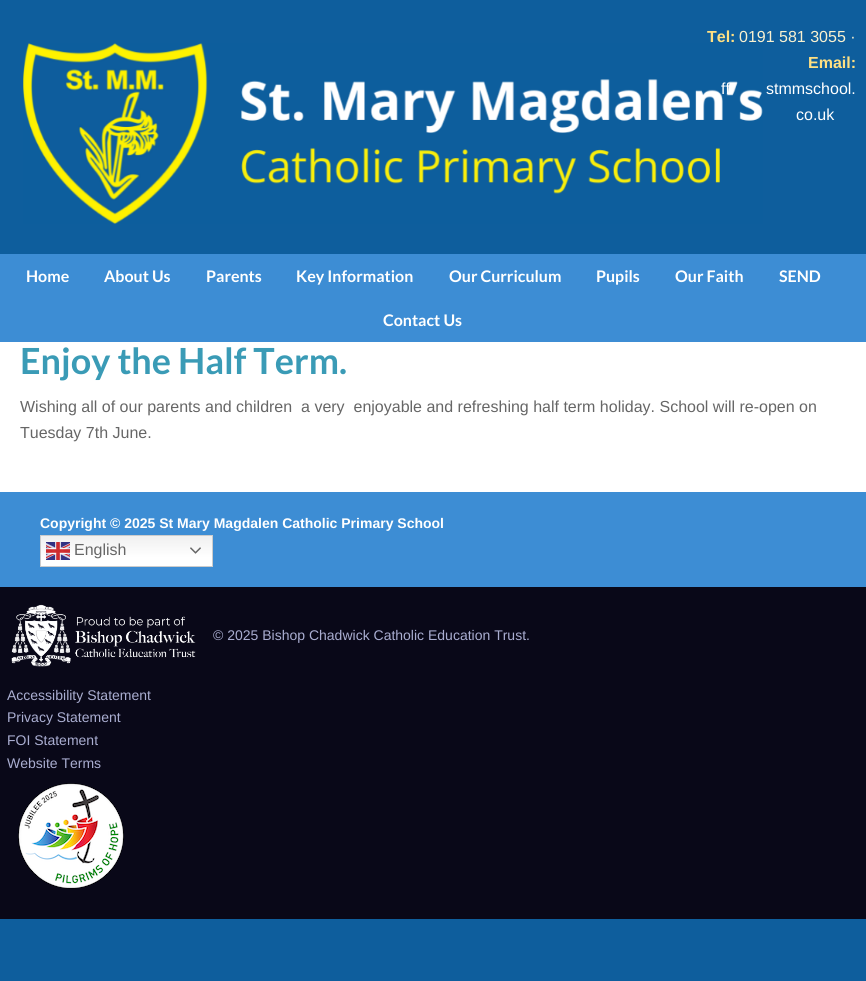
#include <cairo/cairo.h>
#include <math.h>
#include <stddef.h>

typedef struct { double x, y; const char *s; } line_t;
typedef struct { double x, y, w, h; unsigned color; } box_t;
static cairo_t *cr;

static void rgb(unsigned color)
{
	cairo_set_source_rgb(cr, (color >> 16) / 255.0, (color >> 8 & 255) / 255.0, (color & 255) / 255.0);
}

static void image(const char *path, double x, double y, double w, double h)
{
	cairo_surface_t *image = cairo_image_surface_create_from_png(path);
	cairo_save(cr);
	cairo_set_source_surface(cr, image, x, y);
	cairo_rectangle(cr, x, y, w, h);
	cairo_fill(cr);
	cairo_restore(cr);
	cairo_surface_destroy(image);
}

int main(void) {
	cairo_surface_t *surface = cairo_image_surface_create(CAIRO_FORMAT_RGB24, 866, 981);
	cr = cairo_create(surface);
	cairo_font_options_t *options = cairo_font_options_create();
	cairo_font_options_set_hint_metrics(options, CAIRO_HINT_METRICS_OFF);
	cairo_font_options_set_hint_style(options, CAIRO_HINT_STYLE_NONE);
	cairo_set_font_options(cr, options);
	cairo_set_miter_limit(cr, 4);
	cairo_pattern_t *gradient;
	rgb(0x0e5e9d);
	cairo_paint(cr);
	image("img/1.png", 23, 43, 740, 181);
	{
		static const box_t items[] = {
			{0, 254, 866, 88, 0x3d8dd4},
			{0, 342, 866, 150, 0xffffff},
			{0, 492, 866, 95, 0x3d8dd4},
		};
		for (size_t i = 0; i < sizeof items / sizeof *items; i++) {
			rgb(items[i].color);
			cairo_rectangle(cr, items[i].x, items[i].y, items[i].w, items[i].h);
			cairo_fill(cr);
		}
	}
	gradient = cairo_pattern_create_linear(127, 535, 127, 567);
	cairo_pattern_add_color_stop_rgba(gradient, 0, 0.937, 0.937, 0.937, 1);
	cairo_pattern_add_color_stop_rgba(gradient, 0.7, 1, 1, 1, 1);
	cairo_set_source(cr, gradient);
	cairo_pattern_destroy(gradient);
	cairo_rectangle(cr, 41, 536, 171, 30);
	cairo_fill(cr);
	cairo_rectangle(cr, 40.5, 535.5, 172, 31);
	rgb(0xcccccc);
	cairo_set_line_width(cr, 1);
	cairo_stroke(cr);
	image("img/2.png", 46, 542, 24, 18);
	image("img/3.png", 190, 547, 11, 7);
	rgb(0x090818);
	cairo_rectangle(cr, 0, 587, 866, 332);
	cairo_fill(cr);
	image("img/4.png", 11, 604, 185, 63);
	image("img/5.png", 18, 783, 106, 106);
	cairo_select_font_face(cr, "Liberation Sans", CAIRO_FONT_SLANT_NORMAL, CAIRO_FONT_WEIGHT_BOLD);
	cairo_set_font_size(cr, 16);
	rgb(0xffe082);
	cairo_move_to(cr, 707, 42);
	cairo_show_text(cr, "Tel:");
	cairo_select_font_face(cr, "Liberation Sans", CAIRO_FONT_SLANT_NORMAL, CAIRO_FONT_WEIGHT_NORMAL);
	rgb(0xf9f1d0);
	cairo_move_to(cr, 739, 42);
	cairo_show_text(cr, "0191 581 3055 ·");
	cairo_select_font_face(cr, "Liberation Sans", CAIRO_FONT_SLANT_NORMAL, CAIRO_FONT_WEIGHT_BOLD);
	rgb(0xffe082);
	cairo_move_to(cr, 808, 68);
	cairo_show_text(cr, "Email:");
	cairo_select_font_face(cr, "Liberation Sans", CAIRO_FONT_SLANT_NORMAL, CAIRO_FONT_WEIGHT_NORMAL);
	rgb(0xffffff);
	{
		static const line_t items[] = {
			{721, 94, "ff"},
			{766, 94, "stmmschool."},
			{796, 120, "co.uk"},
		};
		for (size_t i = 0; i < sizeof items / sizeof *items; i++) {
			cairo_move_to(cr, items[i].x, items[i].y);
			cairo_show_text(cr, items[i].s);
		}
	}
	cairo_select_font_face(cr, "Lato", CAIRO_FONT_SLANT_NORMAL, CAIRO_FONT_WEIGHT_BOLD);
	{
		static const line_t items[] = {
			{26, 282, "Home"},
			{104, 282, "About Us"},
			{206, 282, "Parents"},
			{296, 282, "Key Information"},
			{449, 282, "Our Curriculum"},
			{596, 282, "Pupils"},
			{675, 282, "Our Faith"},
			{779, 282, "SEND"},
			{383, 326, "Contact Us"},
		};
		for (size_t i = 0; i < sizeof items / sizeof *items; i++) {
			cairo_move_to(cr, items[i].x, items[i].y);
			cairo_show_text(cr, items[i].s);
		}
	}
	cairo_set_font_size(cr, 36);
	rgb(0x3a9bb6);
	cairo_move_to(cr, 20, 374);
	cairo_show_text(cr, "Enjoy the Half Term.");
	cairo_select_font_face(cr, "Liberation Sans", CAIRO_FONT_SLANT_NORMAL, CAIRO_FONT_WEIGHT_NORMAL);
	cairo_set_font_size(cr, 16);
	rgb(0x666666);
	cairo_move_to(cr, 20, 412);
	cairo_show_text(cr, "Wishing all of our parents and children  a very  enjoyable and refreshing half term holiday. School will re-open on");
	cairo_move_to(cr, 20, 438);
	cairo_show_text(cr, "Tuesday 7th June.");
	cairo_select_font_face(cr, "Liberation Sans", CAIRO_FONT_SLANT_NORMAL, CAIRO_FONT_WEIGHT_BOLD);
	cairo_set_font_size(cr, 14);
	rgb(0xffffff);
	cairo_move_to(cr, 40, 528);
	cairo_show_text(cr, "Copyright © 2025 St Mary Magdalen Catholic Primary School");
	cairo_select_font_face(cr, "Liberation Sans", CAIRO_FONT_SLANT_NORMAL, CAIRO_FONT_WEIGHT_NORMAL);
	cairo_set_font_size(cr, 16);
	rgb(0x666666);
	cairo_move_to(cr, 74, 555);
	cairo_show_text(cr, "English");
	cairo_set_font_size(cr, 14);
	rgb(0xaaaed1);
	{
		static const line_t items[] = {
			{213, 640, "© 2025 Bishop Chadwick Catholic Education Trust."},
			{7, 700, "Accessibility Statement"},
			{7, 722, "Privacy Statement"},
			{7, 745, "FOI Statement"},
			{7, 768, "Website Terms"},
		};
		for (size_t i = 0; i < sizeof items / sizeof *items; i++) {
			cairo_move_to(cr, items[i].x, items[i].y);
			cairo_show_text(cr, items[i].s);
		}
	}
	cairo_surface_write_to_png(surface, "page.png");
	cairo_font_options_destroy(options);
	cairo_destroy(cr);
	cairo_surface_destroy(surface);
	return 0;
}
